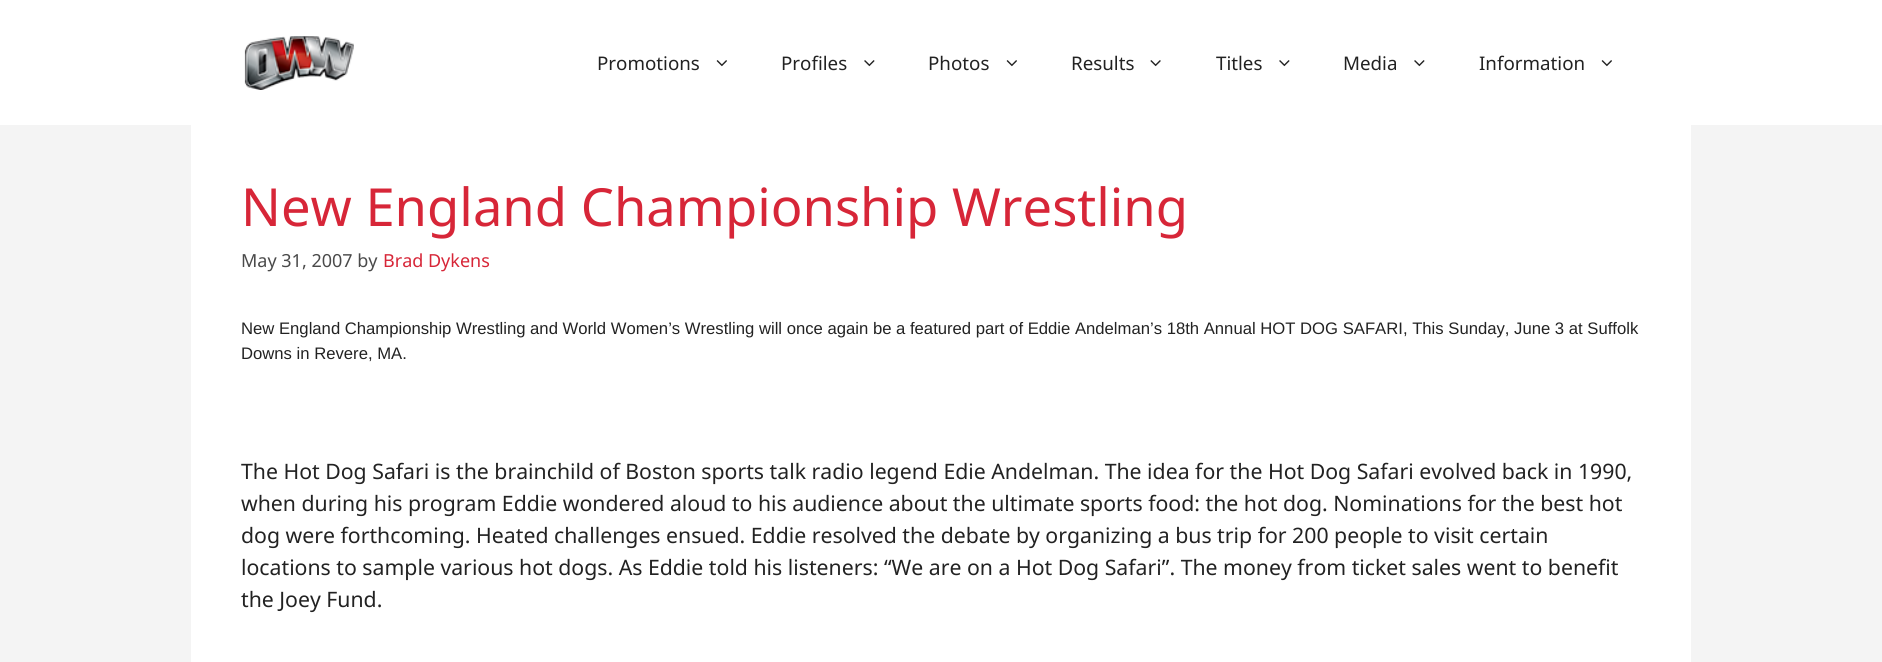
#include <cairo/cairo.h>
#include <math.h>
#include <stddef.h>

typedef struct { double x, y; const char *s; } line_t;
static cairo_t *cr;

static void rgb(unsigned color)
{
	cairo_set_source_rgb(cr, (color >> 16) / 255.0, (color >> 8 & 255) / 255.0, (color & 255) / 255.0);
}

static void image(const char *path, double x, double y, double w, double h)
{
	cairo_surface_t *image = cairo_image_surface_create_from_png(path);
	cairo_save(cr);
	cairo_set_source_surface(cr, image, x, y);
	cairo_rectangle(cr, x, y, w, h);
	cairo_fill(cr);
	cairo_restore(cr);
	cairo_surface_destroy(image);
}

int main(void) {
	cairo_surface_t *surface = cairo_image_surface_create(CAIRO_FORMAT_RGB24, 1882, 662);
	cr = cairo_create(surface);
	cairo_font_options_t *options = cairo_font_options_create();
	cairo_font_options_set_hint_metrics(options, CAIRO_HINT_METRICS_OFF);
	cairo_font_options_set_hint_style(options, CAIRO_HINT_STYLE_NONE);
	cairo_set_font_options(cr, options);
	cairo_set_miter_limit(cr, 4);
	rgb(0xf4f4f4);
	cairo_paint(cr);
	rgb(0xffffff);
	cairo_rectangle(cr, 0, 0, 1882, 125);
	cairo_fill(cr);
	image("img/1.png", 244, 36, 110, 54);
	image("img/2.png", 716, 60, 11, 7);
	image("img/3.png", 864, 60, 11, 7);
	image("img/2.png", 1006, 60, 11, 7);
	image("img/4.png", 1150, 60, 11, 7);
	image("img/3.png", 1279, 60, 11, 7);
	image("img/3.png", 1414, 60, 11, 7);
	image("img/2.png", 1601, 60, 11, 7);
	cairo_rectangle(cr, 191, 125, 1500, 537);
	cairo_fill(cr);
	cairo_select_font_face(cr, "Noto Sans", CAIRO_FONT_SLANT_NORMAL, CAIRO_FONT_WEIGHT_NORMAL);
	cairo_set_font_size(cr, 18.75);
	rgb(0x222222);
	{
		static const line_t items[] = {
			{597, 70, "Promotions"},
			{781, 70, "Profiles"},
			{928, 70, "Photos"},
			{1071, 70, "Results"},
			{1216, 70, "Titles"},
			{1343, 70, "Media"},
			{1479, 70, "Information"},
		};
		for (size_t i = 0; i < sizeof items / sizeof *items; i++) {
			cairo_move_to(cr, items[i].x, items[i].y);
			cairo_show_text(cr, items[i].s);
		}
	}
	cairo_set_font_size(cr, 52.5);
	rgb(0xd72638);
	cairo_move_to(cr, 241, 226);
	cairo_show_text(cr, "New England Championship Wrestling");
	cairo_set_font_size(cr, 18);
	rgb(0x4a4a4a);
	cairo_move_to(cr, 241, 267);
	cairo_show_text(cr, "May 31, 2007 by");
	rgb(0xd72638);
	cairo_move_to(cr, 383, 267);
	cairo_show_text(cr, "Brad Dykens");
	cairo_select_font_face(cr, "Liberation Sans", CAIRO_FONT_SLANT_NORMAL, CAIRO_FONT_WEIGHT_NORMAL);
	cairo_set_font_size(cr, 16.67);
	rgb(0x222222);
	cairo_move_to(cr, 241, 334);
	cairo_show_text(cr, "New England Championship Wrestling and World Women’s Wrestling will once again be a featured part of Eddie Andelman’s 18th Annual HOT DOG SAFARI, This Sunday, June 3 at Suffolk");
	cairo_move_to(cr, 241, 359);
	cairo_show_text(cr, "Downs in Revere, MA.");
	cairo_select_font_face(cr, "Noto Sans", CAIRO_FONT_SLANT_NORMAL, CAIRO_FONT_WEIGHT_NORMAL);
	cairo_set_font_size(cr, 21.25);
	{
		static const line_t items[] = {
			{241, 479, "The Hot Dog Safari is the brainchild of Boston sports talk radio legend Edie Andelman. The idea for the Hot Dog Safari evolved back in 1990,"},
			{241, 511, "when during his program Eddie wondered aloud to his audience about the ultimate sports food: the hot dog. Nominations for the best hot"},
			{241, 543, "dog were forthcoming. Heated challenges ensued. Eddie resolved the debate by organizing a bus trip for 200 people to visit certain"},
			{241, 575, "locations to sample various hot dogs. As Eddie told his listeners: “We are on a Hot Dog Safari”. The money from ticket sales went to benefit"},
			{241, 607, "the Joey Fund."},
		};
		for (size_t i = 0; i < sizeof items / sizeof *items; i++) {
			cairo_move_to(cr, items[i].x, items[i].y);
			cairo_show_text(cr, items[i].s);
		}
	}
	cairo_surface_write_to_png(surface, "page.png");
	cairo_font_options_destroy(options);
	cairo_destroy(cr);
	cairo_surface_destroy(surface);
	return 0;
}
